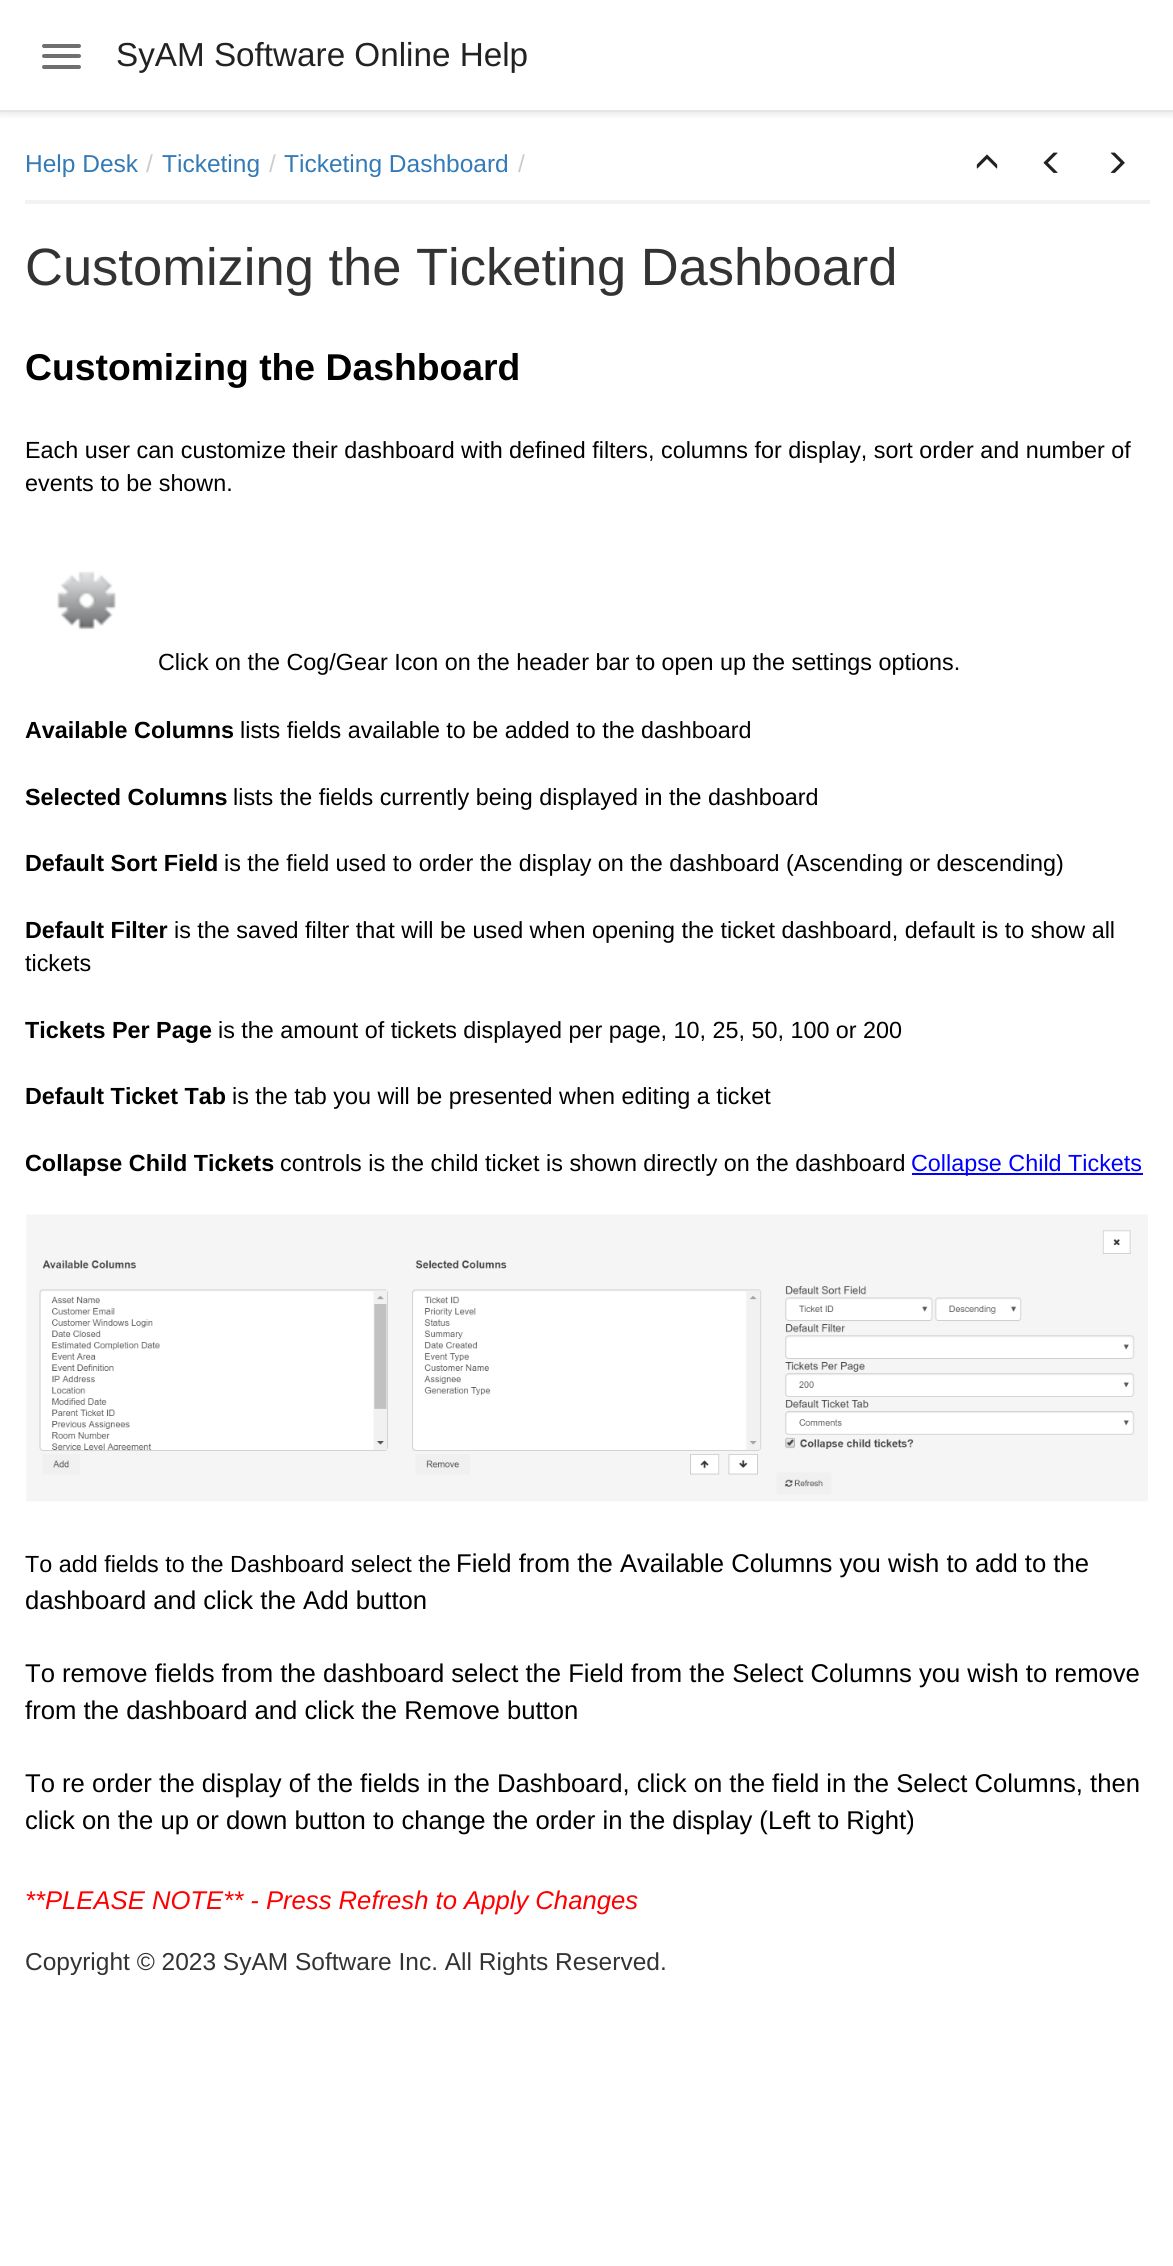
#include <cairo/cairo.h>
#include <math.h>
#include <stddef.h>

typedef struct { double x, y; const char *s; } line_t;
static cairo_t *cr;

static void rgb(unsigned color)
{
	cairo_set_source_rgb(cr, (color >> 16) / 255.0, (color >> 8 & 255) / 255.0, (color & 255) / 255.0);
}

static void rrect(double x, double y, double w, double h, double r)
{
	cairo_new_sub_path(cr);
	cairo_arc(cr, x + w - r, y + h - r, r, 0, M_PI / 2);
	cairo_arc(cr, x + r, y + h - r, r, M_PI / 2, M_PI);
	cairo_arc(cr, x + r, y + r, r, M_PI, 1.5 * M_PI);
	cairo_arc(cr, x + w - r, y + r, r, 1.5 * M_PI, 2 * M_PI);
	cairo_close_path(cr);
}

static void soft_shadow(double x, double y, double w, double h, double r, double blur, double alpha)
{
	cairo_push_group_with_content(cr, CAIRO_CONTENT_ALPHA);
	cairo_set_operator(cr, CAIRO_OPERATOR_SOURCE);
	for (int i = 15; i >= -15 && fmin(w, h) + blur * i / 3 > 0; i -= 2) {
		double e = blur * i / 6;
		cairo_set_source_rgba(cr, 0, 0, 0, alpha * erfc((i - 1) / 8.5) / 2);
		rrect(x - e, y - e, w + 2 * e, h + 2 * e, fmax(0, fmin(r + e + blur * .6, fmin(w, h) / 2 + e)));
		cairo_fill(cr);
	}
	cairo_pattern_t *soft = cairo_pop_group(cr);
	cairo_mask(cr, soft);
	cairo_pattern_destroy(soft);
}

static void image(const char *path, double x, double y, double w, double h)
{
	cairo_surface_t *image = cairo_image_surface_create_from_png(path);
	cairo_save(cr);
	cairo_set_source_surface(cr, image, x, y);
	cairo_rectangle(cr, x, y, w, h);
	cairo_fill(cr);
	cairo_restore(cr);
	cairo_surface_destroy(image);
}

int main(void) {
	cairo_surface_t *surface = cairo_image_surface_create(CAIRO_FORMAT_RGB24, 1173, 2266);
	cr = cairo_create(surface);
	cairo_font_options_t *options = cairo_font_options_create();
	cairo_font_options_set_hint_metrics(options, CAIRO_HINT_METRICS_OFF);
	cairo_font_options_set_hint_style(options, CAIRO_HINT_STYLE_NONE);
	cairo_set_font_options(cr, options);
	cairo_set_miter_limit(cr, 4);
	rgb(0xffffff);
	cairo_paint(cr);
	cairo_save(cr);
	cairo_rectangle(cr, 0, 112, 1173, 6);
	cairo_clip(cr);
	rgb(0x000000);
	soft_shadow(0, 2, 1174, 112, 0, 4.5, 0.1);
	cairo_restore(cr);
	rgb(0xe6e6e6);
	cairo_rectangle(cr, 0, 110, 1173, 2);
	cairo_fill(cr);
	rgb(0x6f6f6f);
	rrect(42, 44, 39, 4, 2);
	cairo_fill(cr);
	rrect(42, 54, 39, 4, 2);
	cairo_fill(cr);
	rrect(42, 65, 39, 4, 2);
	cairo_fill(cr);
	rgb(0xf2f2f2);
	cairo_rectangle(cr, 25, 200, 1125, 4);
	cairo_fill(cr);
	image("img/1.png", 976, 154, 22, 15);
	image("img/2.png", 1043, 152, 15, 21);
	image("img/3.png", 1110, 152, 15, 21);
	image("img/4.png", 57, 571, 59, 59);
	rgb(0x0000ff);
	cairo_rectangle(cr, 912, 1173, 231, 2);
	cairo_fill(cr);
	image("img/5.png", 26, 1214, 1122, 288);
	cairo_select_font_face(cr, "Liberation Sans", CAIRO_FONT_SLANT_NORMAL, CAIRO_FONT_WEIGHT_NORMAL);
	cairo_set_font_size(cr, 33.25);
	rgb(0x222222);
	cairo_move_to(cr, 116, 66);
	cairo_show_text(cr, "SyAM Software Online Help");
	cairo_set_font_size(cr, 24.5);
	rgb(0x337ab7);
	cairo_move_to(cr, 25, 172);
	cairo_show_text(cr, "Help Desk");
	rgb(0xcccccc);
	cairo_move_to(cr, 146, 172);
	cairo_show_text(cr, "/");
	rgb(0x337ab7);
	cairo_move_to(cr, 162, 172);
	cairo_show_text(cr, "Ticketing");
	rgb(0xcccccc);
	cairo_move_to(cr, 269, 172);
	cairo_show_text(cr, "/");
	rgb(0x337ab7);
	cairo_move_to(cr, 284, 172);
	cairo_show_text(cr, "Ticketing Dashboard");
	rgb(0xcccccc);
	cairo_move_to(cr, 518, 172);
	cairo_show_text(cr, "/");
	cairo_set_font_size(cr, 52.5);
	rgb(0x333333);
	cairo_move_to(cr, 25, 285);
	cairo_show_text(cr, "Customizing the Ticketing Dashboard");
	cairo_select_font_face(cr, "Liberation Sans", CAIRO_FONT_SLANT_NORMAL, CAIRO_FONT_WEIGHT_BOLD);
	cairo_set_font_size(cr, 37.3);
	rgb(0x000000);
	cairo_move_to(cr, 25, 380);
	cairo_show_text(cr, "Customizing the Dashboard");
	cairo_select_font_face(cr, "Liberation Sans", CAIRO_FONT_SLANT_NORMAL, CAIRO_FONT_WEIGHT_NORMAL);
	cairo_set_font_size(cr, 23.35);
	{
		static const line_t items[] = {
			{25, 458, "Each user can customize their dashboard with defined filters, columns for display, sort order and number of"},
			{25, 491, "events to be shown."},
			{158, 670, "Click on the Cog/Gear Icon on the header bar to open up the settings options."},
		};
		for (size_t i = 0; i < sizeof items / sizeof *items; i++) {
			cairo_move_to(cr, items[i].x, items[i].y);
			cairo_show_text(cr, items[i].s);
		}
	}
	cairo_select_font_face(cr, "Liberation Sans", CAIRO_FONT_SLANT_NORMAL, CAIRO_FONT_WEIGHT_BOLD);
	cairo_move_to(cr, 25, 738);
	cairo_show_text(cr, "Available Columns");
	cairo_select_font_face(cr, "Liberation Sans", CAIRO_FONT_SLANT_NORMAL, CAIRO_FONT_WEIGHT_NORMAL);
	cairo_move_to(cr, 240, 738);
	cairo_show_text(cr, "lists fields available to be added to the dashboard");
	cairo_select_font_face(cr, "Liberation Sans", CAIRO_FONT_SLANT_NORMAL, CAIRO_FONT_WEIGHT_BOLD);
	cairo_move_to(cr, 25, 805);
	cairo_show_text(cr, "Selected Columns");
	cairo_select_font_face(cr, "Liberation Sans", CAIRO_FONT_SLANT_NORMAL, CAIRO_FONT_WEIGHT_NORMAL);
	cairo_move_to(cr, 233, 805);
	cairo_show_text(cr, "lists the fields currently being displayed in the dashboard");
	cairo_select_font_face(cr, "Liberation Sans", CAIRO_FONT_SLANT_NORMAL, CAIRO_FONT_WEIGHT_BOLD);
	cairo_move_to(cr, 25, 871);
	cairo_show_text(cr, "Default Sort Field");
	cairo_select_font_face(cr, "Liberation Sans", CAIRO_FONT_SLANT_NORMAL, CAIRO_FONT_WEIGHT_NORMAL);
	cairo_move_to(cr, 224, 871);
	cairo_show_text(cr, "is the field used to order the display on the dashboard (Ascending or descending)");
	cairo_select_font_face(cr, "Liberation Sans", CAIRO_FONT_SLANT_NORMAL, CAIRO_FONT_WEIGHT_BOLD);
	cairo_move_to(cr, 25, 938);
	cairo_show_text(cr, "Default Filter");
	cairo_select_font_face(cr, "Liberation Sans", CAIRO_FONT_SLANT_NORMAL, CAIRO_FONT_WEIGHT_NORMAL);
	cairo_move_to(cr, 174, 938);
	cairo_show_text(cr, "is the saved filter that will be used when opening the ticket dashboard, default is to show all");
	cairo_move_to(cr, 25, 971);
	cairo_show_text(cr, "tickets");
	cairo_select_font_face(cr, "Liberation Sans", CAIRO_FONT_SLANT_NORMAL, CAIRO_FONT_WEIGHT_BOLD);
	cairo_move_to(cr, 25, 1038);
	cairo_show_text(cr, "Tickets Per Page");
	cairo_select_font_face(cr, "Liberation Sans", CAIRO_FONT_SLANT_NORMAL, CAIRO_FONT_WEIGHT_NORMAL);
	cairo_move_to(cr, 218, 1038);
	cairo_show_text(cr, "is the amount of tickets displayed per page, 10, 25, 50, 100 or 200");
	cairo_select_font_face(cr, "Liberation Sans", CAIRO_FONT_SLANT_NORMAL, CAIRO_FONT_WEIGHT_BOLD);
	cairo_move_to(cr, 25, 1104);
	cairo_show_text(cr, "Default Ticket Tab");
	cairo_select_font_face(cr, "Liberation Sans", CAIRO_FONT_SLANT_NORMAL, CAIRO_FONT_WEIGHT_NORMAL);
	cairo_move_to(cr, 232, 1104);
	cairo_show_text(cr, "is the tab you will be presented when editing a ticket");
	cairo_select_font_face(cr, "Liberation Sans", CAIRO_FONT_SLANT_NORMAL, CAIRO_FONT_WEIGHT_BOLD);
	cairo_move_to(cr, 25, 1171);
	cairo_show_text(cr, "Collapse Child Tickets");
	cairo_select_font_face(cr, "Liberation Sans", CAIRO_FONT_SLANT_NORMAL, CAIRO_FONT_WEIGHT_NORMAL);
	cairo_move_to(cr, 280, 1171);
	cairo_show_text(cr, "controls is the child ticket is shown directly on the dashboard");
	rgb(0x0000ff);
	cairo_move_to(cr, 911, 1171);
	cairo_show_text(cr, "Collapse Child Tickets");
	rgb(0x000000);
	cairo_move_to(cr, 25, 1572);
	cairo_show_text(cr, "To add fields to the Dashboard select the");
	cairo_set_font_size(cr, 25.65);
	{
		static const line_t items[] = {
			{456, 1572, "Field from the Available Columns you wish to add to the"},
			{25, 1609, "dashboard and click the Add button"},
			{25, 1682, "To remove fields from the dashboard select the Field from the Select Columns you wish to remove"},
			{25, 1719, "from the dashboard and click the Remove button"},
			{25, 1792, "To re order the display of the fields in the Dashboard, click on the field in the Select Columns, then"},
			{25, 1829, "click on the up or down button to change the order in the display (Left to Right)"},
		};
		for (size_t i = 0; i < sizeof items / sizeof *items; i++) {
			cairo_move_to(cr, items[i].x, items[i].y);
			cairo_show_text(cr, items[i].s);
		}
	}
	cairo_select_font_face(cr, "Liberation Sans", CAIRO_FONT_SLANT_ITALIC, CAIRO_FONT_WEIGHT_NORMAL);
	rgb(0xff0000);
	cairo_move_to(cr, 25, 1909);
	cairo_show_text(cr, "**PLEASE NOTE** - Press Refresh to Apply Changes");
	cairo_select_font_face(cr, "Liberation Sans", CAIRO_FONT_SLANT_NORMAL, CAIRO_FONT_WEIGHT_NORMAL);
	cairo_set_font_size(cr, 24.5);
	rgb(0x333333);
	cairo_move_to(cr, 25, 1970);
	cairo_show_text(cr, "Copyright © 2023 SyAM Software Inc. All Rights Reserved.");
	cairo_surface_write_to_png(surface, "page.png");
	cairo_font_options_destroy(options);
	cairo_destroy(cr);
	cairo_surface_destroy(surface);
	return 0;
}
